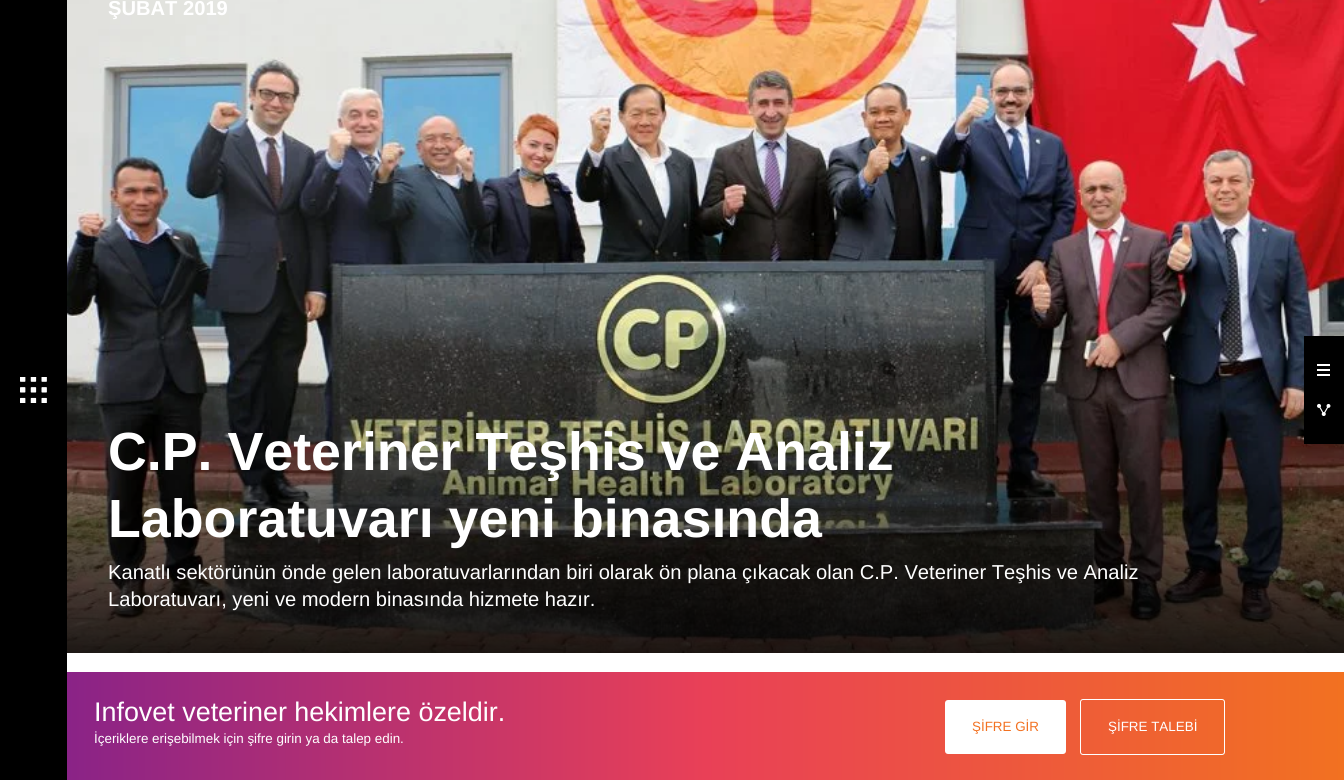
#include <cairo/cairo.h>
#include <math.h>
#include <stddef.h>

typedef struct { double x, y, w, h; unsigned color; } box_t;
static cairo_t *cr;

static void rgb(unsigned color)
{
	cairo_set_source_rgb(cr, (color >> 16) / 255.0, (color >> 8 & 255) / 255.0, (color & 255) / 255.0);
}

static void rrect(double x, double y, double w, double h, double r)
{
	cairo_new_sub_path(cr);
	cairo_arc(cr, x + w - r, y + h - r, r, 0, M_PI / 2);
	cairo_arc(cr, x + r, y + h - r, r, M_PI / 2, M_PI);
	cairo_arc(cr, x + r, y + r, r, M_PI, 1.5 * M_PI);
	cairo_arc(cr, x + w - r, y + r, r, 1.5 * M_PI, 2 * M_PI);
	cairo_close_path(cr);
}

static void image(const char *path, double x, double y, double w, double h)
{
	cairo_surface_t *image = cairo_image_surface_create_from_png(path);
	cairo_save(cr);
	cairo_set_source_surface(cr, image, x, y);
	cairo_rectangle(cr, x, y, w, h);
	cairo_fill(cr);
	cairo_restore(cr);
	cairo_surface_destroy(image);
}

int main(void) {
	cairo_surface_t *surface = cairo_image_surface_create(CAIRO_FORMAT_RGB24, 1344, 780);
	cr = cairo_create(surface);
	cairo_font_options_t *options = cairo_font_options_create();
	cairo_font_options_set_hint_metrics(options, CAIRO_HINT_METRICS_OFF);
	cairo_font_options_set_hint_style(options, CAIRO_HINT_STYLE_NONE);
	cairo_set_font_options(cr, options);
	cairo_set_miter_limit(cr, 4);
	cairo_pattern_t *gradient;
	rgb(0xffffff);
	cairo_paint(cr);
	rgb(0x000000);
	cairo_rectangle(cr, 0, 0, 67, 780);
	cairo_fill(cr);
	image("img/1.png", 20, 377, 27, 26);
	image("img/2.png", 67, 0, 1277, 653);
	gradient = cairo_pattern_create_linear(67, 726, 1344, 726);
	cairo_pattern_add_color_stop_rgba(gradient, 0, 0.541, 0.137, 0.529, 1);
	cairo_pattern_add_color_stop_rgba(gradient, 0.5, 0.914, 0.251, 0.341, 1);
	cairo_pattern_add_color_stop_rgba(gradient, 1, 0.949, 0.443, 0.129, 1);
	cairo_set_source(cr, gradient);
	cairo_pattern_destroy(gradient);
	cairo_rectangle(cr, 67, 672, 1277, 108);
	cairo_fill(cr);
	rgb(0xffffff);
	rrect(945, 700, 121, 54, 3);
	cairo_fill(cr);
	rrect(1080.5, 699.5, 144, 55, 2.5);
	cairo_set_line_width(cr, 1);
	cairo_stroke(cr);
	{
		static const box_t items[] = {
			{1304, 336, 40, 108, 0x000000},
			{1317, 364, 13, 2, 0xffffff},
			{1317, 369, 13, 2, 0xffffff},
			{1317, 374, 13, 2, 0xffffff},
		};
		for (size_t i = 0; i < sizeof items / sizeof *items; i++) {
			rgb(items[i].color);
			cairo_rectangle(cr, items[i].x, items[i].y, items[i].w, items[i].h);
			cairo_fill(cr);
		}
	}
	image("img/3.png", 1317, 403, 14, 13);
	cairo_select_font_face(cr, "Liberation Sans", CAIRO_FONT_SLANT_NORMAL, CAIRO_FONT_WEIGHT_BOLD);
	cairo_set_font_size(cr, 20.15);
	cairo_move_to(cr, 108, 15);
	cairo_show_text(cr, "ŞUBAT 2019");
	cairo_set_font_size(cr, 53.75);
	cairo_move_to(cr, 108, 470);
	cairo_show_text(cr, "C.P. Veteriner Teşhis ve Analiz");
	cairo_move_to(cr, 108, 537);
	cairo_show_text(cr, "Laboratuvarı yeni binasında");
	cairo_select_font_face(cr, "Liberation Sans", CAIRO_FONT_SLANT_NORMAL, CAIRO_FONT_WEIGHT_NORMAL);
	cairo_set_font_size(cr, 20.15);
	cairo_move_to(cr, 108, 579);
	cairo_show_text(cr, "Kanatlı sektörünün önde gelen laboratuvarlarından biri olarak ön plana çıkacak olan C.P. Veteriner Teşhis ve Analiz");
	cairo_move_to(cr, 108, 606);
	cairo_show_text(cr, "Laboratuvarı, yeni ve modern binasında hizmete hazır.");
	cairo_set_font_size(cr, 26.9);
	cairo_move_to(cr, 94, 721);
	cairo_show_text(cr, "Infovet veteriner hekimlere özeldir.");
	cairo_set_font_size(cr, 13.4);
	cairo_move_to(cr, 94, 743);
	cairo_show_text(cr, "İçeriklere erişebilmek için şifre girin ya da talep edin.");
	rgb(0xf27121);
	cairo_move_to(cr, 972, 731);
	cairo_show_text(cr, "ŞİFRE GİR");
	rgb(0xffffff);
	cairo_move_to(cr, 1108, 731);
	cairo_show_text(cr, "ŞİFRE TALEBİ");
	cairo_surface_write_to_png(surface, "page.png");
	cairo_font_options_destroy(options);
	cairo_destroy(cr);
	cairo_surface_destroy(surface);
	return 0;
}
